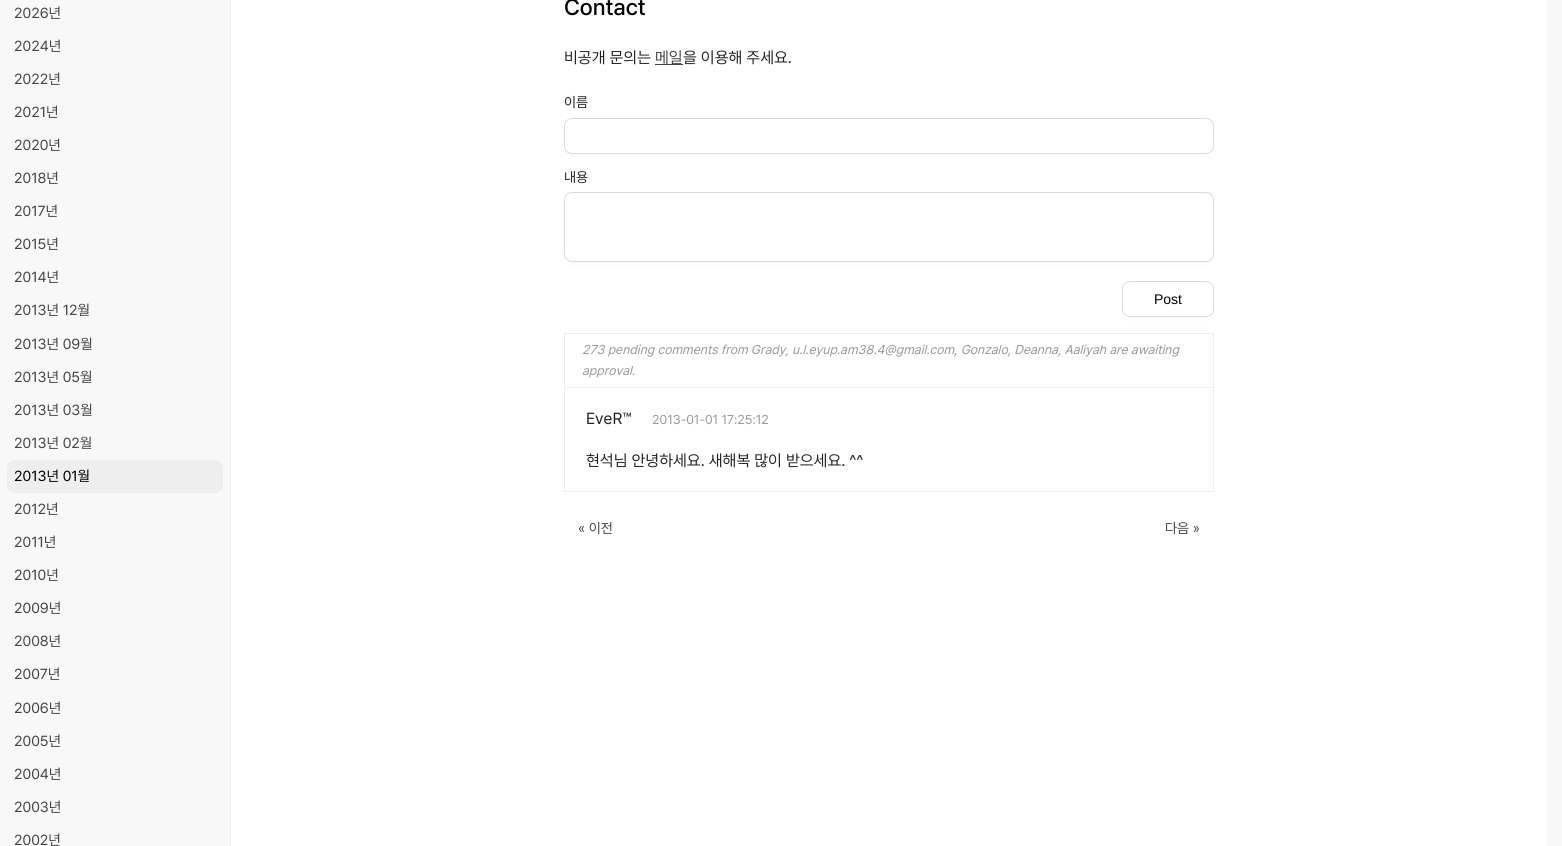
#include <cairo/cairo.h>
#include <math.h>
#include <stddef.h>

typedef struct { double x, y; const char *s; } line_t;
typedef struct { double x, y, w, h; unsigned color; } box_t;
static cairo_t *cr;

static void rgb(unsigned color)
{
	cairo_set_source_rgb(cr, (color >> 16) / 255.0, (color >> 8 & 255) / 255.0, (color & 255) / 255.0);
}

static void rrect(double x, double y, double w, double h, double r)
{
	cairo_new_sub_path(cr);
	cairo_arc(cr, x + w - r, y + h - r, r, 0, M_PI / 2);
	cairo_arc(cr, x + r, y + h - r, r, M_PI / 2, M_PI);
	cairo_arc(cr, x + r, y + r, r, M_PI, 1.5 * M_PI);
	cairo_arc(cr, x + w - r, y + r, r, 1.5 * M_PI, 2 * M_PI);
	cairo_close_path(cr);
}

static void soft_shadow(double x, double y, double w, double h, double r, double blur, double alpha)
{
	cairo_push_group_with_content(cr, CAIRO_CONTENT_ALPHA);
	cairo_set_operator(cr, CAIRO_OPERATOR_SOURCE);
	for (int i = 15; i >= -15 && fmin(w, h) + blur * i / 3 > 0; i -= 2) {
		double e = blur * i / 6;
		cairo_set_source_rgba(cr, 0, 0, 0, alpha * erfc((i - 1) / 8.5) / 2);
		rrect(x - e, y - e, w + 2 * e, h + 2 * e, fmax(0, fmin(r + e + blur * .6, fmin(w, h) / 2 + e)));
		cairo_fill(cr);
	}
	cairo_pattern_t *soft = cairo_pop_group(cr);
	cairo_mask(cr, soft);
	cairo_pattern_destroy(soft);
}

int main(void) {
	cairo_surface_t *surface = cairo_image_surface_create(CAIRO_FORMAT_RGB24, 1562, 846);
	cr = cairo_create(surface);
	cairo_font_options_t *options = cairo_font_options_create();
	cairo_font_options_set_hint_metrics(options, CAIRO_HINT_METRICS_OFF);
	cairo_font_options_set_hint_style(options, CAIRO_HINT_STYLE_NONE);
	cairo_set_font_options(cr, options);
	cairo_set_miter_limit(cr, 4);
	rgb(0xf8f8f8);
	cairo_paint(cr);
	rgb(0xffffff);
	cairo_rectangle(cr, 231, 0, 1316, 846);
	cairo_fill(cr);
	rgb(0xededed);
	cairo_rectangle(cr, 230, 0, 1, 846);
	cairo_fill(cr);
	rgb(0xeeeeee);
	rrect(7, 460, 216, 33, 8);
	cairo_fill(cr);
	rgb(0x444444);
	cairo_rectangle(cr, 655, 64, 28, 1);
	cairo_fill(cr);
	rgb(0x000000);
	soft_shadow(567, 124, 644, 30, 5, 3, 0.05);
	rgb(0xffffff);
	rrect(564.5, 118.5, 649, 35, 7.5);
	cairo_fill_preserve(cr);
	rgb(0xdbdbdb);
	cairo_set_line_width(cr, 1);
	cairo_stroke(cr);
	rgb(0x000000);
	soft_shadow(567, 198, 644, 64, 5, 3, 0.05);
	rgb(0xffffff);
	rrect(564.5, 192.5, 649, 69, 7.5);
	cairo_fill_preserve(cr);
	rgb(0xdbdbdb);
	cairo_stroke(cr);
	rgb(0x000000);
	soft_shadow(1125, 287, 86, 30, 5, 3, 0.05);
	rgb(0xffffff);
	rrect(1122.5, 281.5, 91, 35, 7.5);
	cairo_fill_preserve(cr);
	rgb(0xdbdbdb);
	cairo_stroke(cr);
	{
		static const box_t items[] = {
			{564, 333, 650, 1, 0xeeeeee},
			{1213, 334, 1, 158, 0xeeeeee},
			{564, 387, 650, 1, 0xeeeeee},
			{564, 334, 1, 54, 0xeeeeee},
			{564, 491, 650, 1, 0xeeeeee},
			{564, 388, 1, 104, 0xeeeeee},
		};
		for (size_t i = 0; i < sizeof items / sizeof *items; i++) {
			rgb(items[i].color);
			cairo_rectangle(cr, items[i].x, items[i].y, items[i].w, items[i].h);
			cairo_fill(cr);
		}
	}
	cairo_select_font_face(cr, "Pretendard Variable", CAIRO_FONT_SLANT_NORMAL, CAIRO_FONT_WEIGHT_NORMAL);
	cairo_set_font_size(cr, 14.5);
	rgb(0x444444);
	{
		static const line_t items[] = {
			{14, 18, "2026년"},
			{14, 51, "2024년"},
			{14, 84, "2022년"},
			{14, 117, "2021년"},
			{14, 150, "2020년"},
			{14, 183, "2018년"},
			{14, 216, "2017년"},
			{14, 249, "2015년"},
			{14, 282, "2014년"},
			{14, 315, "2013년 12월"},
			{14, 349, "2013년 09월"},
			{14, 382, "2013년 05월"},
			{14, 415, "2013년 03월"},
			{14, 448, "2013년 02월"},
		};
		for (size_t i = 0; i < sizeof items / sizeof *items; i++) {
			cairo_move_to(cr, items[i].x, items[i].y);
			cairo_show_text(cr, items[i].s);
		}
	}
	rgb(0x000000);
	cairo_move_to(cr, 14, 481);
	cairo_show_text(cr, "2013년 01월");
	rgb(0x444444);
	{
		static const line_t items[] = {
			{14, 514, "2012년"},
			{14, 547, "2011년"},
			{14, 580, "2010년"},
			{14, 613, "2009년"},
			{14, 646, "2008년"},
			{14, 679, "2007년"},
			{14, 713, "2006년"},
			{14, 746, "2005년"},
			{14, 779, "2004년"},
			{14, 812, "2003년"},
			{14, 845, "2002년"},
		};
		for (size_t i = 0; i < sizeof items / sizeof *items; i++) {
			cairo_move_to(cr, items[i].x, items[i].y);
			cairo_show_text(cr, items[i].s);
		}
	}
	cairo_select_font_face(cr, "Pretendard Variable Medium", CAIRO_FONT_SLANT_NORMAL, CAIRO_FONT_WEIGHT_NORMAL);
	cairo_set_font_size(cr, 22.5);
	rgb(0x000000);
	cairo_move_to(cr, 564, 15);
	cairo_show_text(cr, "Contact");
	cairo_select_font_face(cr, "Pretendard Variable", CAIRO_FONT_SLANT_NORMAL, CAIRO_FONT_WEIGHT_NORMAL);
	cairo_set_font_size(cr, 16);
	rgb(0x222222);
	cairo_move_to(cr, 564, 63);
	cairo_show_text(cr, "비공개 문의는");
	rgb(0x444444);
	cairo_move_to(cr, 655, 63);
	cairo_show_text(cr, "메일");
	rgb(0x222222);
	cairo_move_to(cr, 683, 63);
	cairo_show_text(cr, "을 이용해 주세요.");
	cairo_set_font_size(cr, 14);
	cairo_move_to(cr, 564, 107);
	cairo_show_text(cr, "이름");
	cairo_move_to(cr, 564, 182);
	cairo_show_text(cr, "내용");
	cairo_select_font_face(cr, "Liberation Sans", CAIRO_FONT_SLANT_NORMAL, CAIRO_FONT_WEIGHT_NORMAL);
	rgb(0x000000);
	cairo_move_to(cr, 1154, 304);
	cairo_show_text(cr, "Post");
	cairo_select_font_face(cr, "Pretendard Variable", CAIRO_FONT_SLANT_ITALIC, CAIRO_FONT_WEIGHT_NORMAL);
	cairo_set_font_size(cr, 12.8);
	rgb(0x999999);
	cairo_move_to(cr, 582, 354);
	cairo_show_text(cr, "273 pending comments from Grady, u.l.eyup.am38.4@gmail.com, Gonzalo, Deanna, Aaliyah are awaiting");
	cairo_move_to(cr, 582, 375);
	cairo_show_text(cr, "approval.");
	cairo_select_font_face(cr, "Pretendard Variable", CAIRO_FONT_SLANT_NORMAL, CAIRO_FONT_WEIGHT_NORMAL);
	cairo_set_font_size(cr, 16);
	rgb(0x222222);
	cairo_move_to(cr, 586, 424);
	cairo_show_text(cr, "EveR™");
	cairo_set_font_size(cr, 12.8);
	rgb(0x999999);
	cairo_move_to(cr, 652, 424);
	cairo_show_text(cr, "2013-01-01 17:25:12");
	cairo_set_font_size(cr, 16);
	rgb(0x222222);
	cairo_move_to(cr, 586, 466);
	cairo_show_text(cr, "현석님 안녕하세요. 새해복 많이 받으세요. ^^");
	cairo_set_font_size(cr, 14);
	rgb(0x444444);
	cairo_move_to(cr, 578, 533);
	cairo_show_text(cr, "« 이전");
	cairo_move_to(cr, 1165, 533);
	cairo_show_text(cr, "다음 »");
	cairo_surface_write_to_png(surface, "page.png");
	cairo_font_options_destroy(options);
	cairo_destroy(cr);
	cairo_surface_destroy(surface);
	return 0;
}
